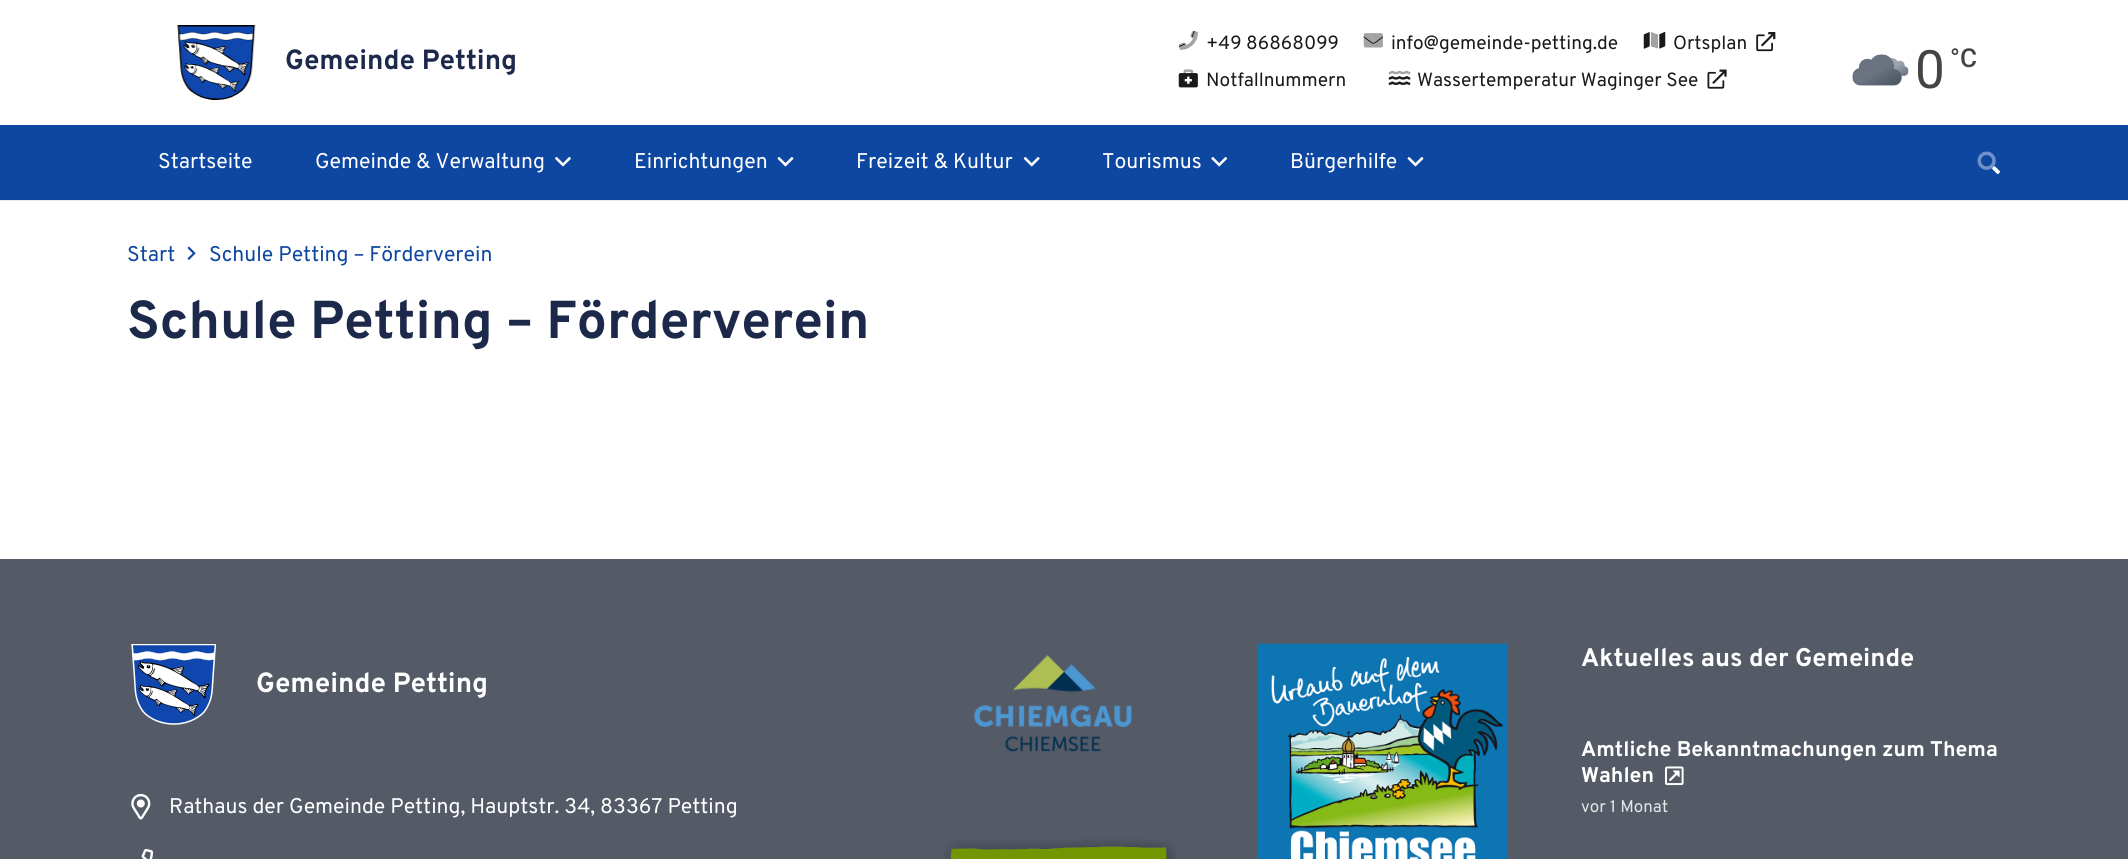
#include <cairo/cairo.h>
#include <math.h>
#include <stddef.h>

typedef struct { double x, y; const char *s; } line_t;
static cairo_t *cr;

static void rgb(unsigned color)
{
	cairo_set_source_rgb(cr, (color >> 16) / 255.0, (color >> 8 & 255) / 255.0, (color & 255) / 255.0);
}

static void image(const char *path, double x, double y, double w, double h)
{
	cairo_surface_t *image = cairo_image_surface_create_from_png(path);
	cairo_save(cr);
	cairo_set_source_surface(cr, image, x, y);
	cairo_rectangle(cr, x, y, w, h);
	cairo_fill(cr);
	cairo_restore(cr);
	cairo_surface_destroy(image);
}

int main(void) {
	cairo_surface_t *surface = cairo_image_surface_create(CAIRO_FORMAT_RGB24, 2128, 859);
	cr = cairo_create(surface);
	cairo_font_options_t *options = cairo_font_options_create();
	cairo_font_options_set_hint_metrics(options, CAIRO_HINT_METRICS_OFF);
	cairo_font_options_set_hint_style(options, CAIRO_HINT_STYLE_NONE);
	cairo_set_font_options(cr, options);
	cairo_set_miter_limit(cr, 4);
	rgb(0xffffff);
	cairo_paint(cr);
	image("img/1.png", 177, 25, 79, 75);
	image("img/3.png", 1179, 31, 16, 16);
	image("img/2.png", 1178, 30, 20, 20);
	image("img/5.png", 1363, 36, 20, 8);
	image("img/4.png", 1363, 33, 20, 15);
	image("img/6.png", 1643, 32, 23, 17);
	rgb(0xa3a3a3);
	cairo_new_path(cr);
	cairo_move_to(cr, 1651, 32);
	cairo_line_to(cr, 1658, 34.5);
	cairo_line_to(cr, 1658, 48.5);
	cairo_line_to(cr, 1651, 46.5);
	cairo_close_path(cr);
	cairo_fill(cr);
	image("img/7.png", 1756, 32, 20, 20);
	image("img/8.png", 1183, 69, 11, 4);
	image("img/9.png", 1178, 73, 20, 15);
	image("img/10.png", 1388, 70, 23, 5);
	image("img/11.png", 1388, 76, 23, 9);
	image("img/12.png", 1707, 69, 20, 20);
	image("img/13.png", 1852, 54, 57, 32);
	rgb(0xebebeb);
	cairo_new_path(cr);
	cairo_move_to(cr, 0, 200);
	cairo_line_to(cr, 0, 201);
	cairo_line_to(cr, 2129, 201);
	cairo_line_to(cr, 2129, 126);
	cairo_line_to(cr, 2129, 200);
	cairo_close_path(cr);
	cairo_fill(cr);
	rgb(0x0d47a1);
	cairo_rectangle(cr, 0, 125, 2128, 75);
	cairo_fill(cr);
	image("img/14.png", 555, 157, 16, 10);
	image("img/15.png", 777, 157, 17, 10);
	image("img/16.png", 1023, 157, 17, 10);
	image("img/17.png", 1211, 157, 17, 10);
	image("img/15.png", 1407, 157, 17, 10);
	image("img/19.png", 1992, 166, 8, 8);
	image("img/18.png", 1977, 151, 19, 19);
	image("img/20.png", 187, 246, 9, 14);
	rgb(0x545a66);
	cairo_rectangle(cr, 0, 559, 2128, 300);
	cairo_fill(cr);
	image("img/21.png", 131, 644, 85, 81);
	image("img/22.png", 131, 793, 20, 27);
	image("img/23.png", 141, 848, 13, 11);
	image("img/24.png", 974, 655, 158, 97);
	image("img/25.png", 944, 839, 233, 20);
	image("img/26.png", 1257, 643, 251, 216);
	image("img/27.png", 1665, 766, 19, 20);
	cairo_select_font_face(cr, "Overpass", CAIRO_FONT_SLANT_NORMAL, CAIRO_FONT_WEIGHT_BOLD);
	cairo_set_font_size(cr, 27.75);
	rgb(0x1c294a);
	cairo_move_to(cr, 285, 69);
	cairo_show_text(cr, "Gemeinde Petting");
	cairo_select_font_face(cr, "Overpass", CAIRO_FONT_SLANT_NORMAL, CAIRO_FONT_WEIGHT_NORMAL);
	cairo_set_font_size(cr, 19.1);
	rgb(0x1a1a1a);
	{
		static const line_t items[] = {
			{1206, 49, "+49 86868099"},
			{1391, 49, "info@gemeinde-petting.de"},
			{1673, 49, "Ortsplan"},
			{1206, 86, "Notfallnummern"},
			{1417, 86, "Wassertemperatur Waginger See"},
		};
		for (size_t i = 0; i < sizeof items / sizeof *items; i++) {
			cairo_move_to(cr, items[i].x, items[i].y);
			cairo_show_text(cr, items[i].s);
		}
	}
	cairo_select_font_face(cr, "Roboto", CAIRO_FONT_SLANT_NORMAL, CAIRO_FONT_WEIGHT_NORMAL);
	cairo_set_font_size(cr, 53);
	rgb(0x444444);
	cairo_move_to(cr, 1915, 88);
	cairo_show_text(cr, "0");
	cairo_select_font_face(cr, "Roboto Medium", CAIRO_FONT_SLANT_NORMAL, CAIRO_FONT_WEIGHT_NORMAL);
	cairo_set_font_size(cr, 26);
	cairo_move_to(cr, 1950, 67);
	cairo_show_text(cr, "°C");
	cairo_select_font_face(cr, "Overpass", CAIRO_FONT_SLANT_NORMAL, CAIRO_FONT_WEIGHT_NORMAL);
	cairo_set_font_size(cr, 21.25);
	rgb(0xffffff);
	{
		static const line_t items[] = {
			{158, 168, "Startseite"},
			{315, 168, "Gemeinde & Verwaltung"},
			{634, 168, "Einrichtungen"},
			{856, 168, "Freizeit & Kultur"},
			{1102, 168, "Tourismus"},
			{1290, 168, "Bürgerhilfe"},
		};
		for (size_t i = 0; i < sizeof items / sizeof *items; i++) {
			cairo_move_to(cr, items[i].x, items[i].y);
			cairo_show_text(cr, items[i].s);
		}
	}
	rgb(0x0d47a1);
	cairo_move_to(cr, 127, 261);
	cairo_show_text(cr, "Start");
	cairo_move_to(cr, 209, 261);
	cairo_show_text(cr, "Schule Petting – Förderverein");
	cairo_select_font_face(cr, "Overpass", CAIRO_FONT_SLANT_NORMAL, CAIRO_FONT_WEIGHT_BOLD);
	cairo_set_font_size(cr, 53.25);
	rgb(0x1c294a);
	cairo_move_to(cr, 127, 338);
	cairo_show_text(cr, "Schule Petting – Förderverein");
	cairo_set_font_size(cr, 27.75);
	rgb(0xffffff);
	cairo_move_to(cr, 256, 692);
	cairo_show_text(cr, "Gemeinde Petting");
	cairo_select_font_face(cr, "Overpass", CAIRO_FONT_SLANT_NORMAL, CAIRO_FONT_WEIGHT_NORMAL);
	cairo_set_font_size(cr, 21.25);
	cairo_move_to(cr, 169, 813);
	cairo_show_text(cr, "Rathaus der Gemeinde Petting, Hauptstr. 34, 83367 Petting");
	cairo_select_font_face(cr, "Overpass", CAIRO_FONT_SLANT_NORMAL, CAIRO_FONT_WEIGHT_BOLD);
	cairo_set_font_size(cr, 25.5);
	cairo_move_to(cr, 1581, 666);
	cairo_show_text(cr, "Aktuelles aus der Gemeinde");
	cairo_set_font_size(cr, 21.25);
	cairo_move_to(cr, 1581, 756);
	cairo_show_text(cr, "Amtliche Bekanntmachungen zum Thema");
	cairo_move_to(cr, 1581, 782);
	cairo_show_text(cr, "Wahlen");
	cairo_select_font_face(cr, "Overpass", CAIRO_FONT_SLANT_NORMAL, CAIRO_FONT_WEIGHT_NORMAL);
	cairo_set_font_size(cr, 17);
	rgb(0xe5e6e8);
	cairo_move_to(cr, 1581, 812);
	cairo_show_text(cr, "vor 1 Monat");
	cairo_surface_write_to_png(surface, "page.png");
	cairo_font_options_destroy(options);
	cairo_destroy(cr);
	cairo_surface_destroy(surface);
	return 0;
}
